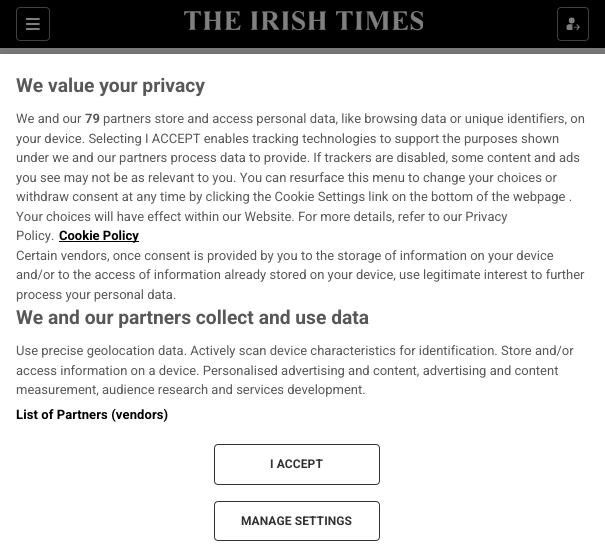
#include <cairo/cairo.h>
#include <math.h>
#include <stddef.h>

typedef struct { double x, y; const char *s; } line_t;
static cairo_t *cr;

static void rgb(unsigned color)
{
	cairo_set_source_rgb(cr, (color >> 16) / 255.0, (color >> 8 & 255) / 255.0, (color & 255) / 255.0);
}

static void tracked(double x, double y, const char *s, double letter, double word)
{
	cairo_move_to(cr, x, y);
	while (*s) {
		char ch[5] = {0};
		int n = 0;
		do ch[n++] = *s++; while ((*s & 0xC0) == 0x80);
		cairo_show_text(cr, ch);
		cairo_rel_move_to(cr, letter + word * (*ch == ' '), 0);
	}
}

static void rrect(double x, double y, double w, double h, double r)
{
	cairo_new_sub_path(cr);
	cairo_arc(cr, x + w - r, y + h - r, r, 0, M_PI / 2);
	cairo_arc(cr, x + r, y + h - r, r, M_PI / 2, M_PI);
	cairo_arc(cr, x + r, y + r, r, M_PI, 1.5 * M_PI);
	cairo_arc(cr, x + w - r, y + r, r, 1.5 * M_PI, 2 * M_PI);
	cairo_close_path(cr);
}

static void soft_shadow(double x, double y, double w, double h, double r, double blur, double alpha)
{
	cairo_push_group_with_content(cr, CAIRO_CONTENT_ALPHA);
	cairo_set_operator(cr, CAIRO_OPERATOR_SOURCE);
	for (int i = 15; i >= -15 && fmin(w, h) + blur * i / 3 > 0; i -= 2) {
		double e = blur * i / 6;
		cairo_set_source_rgba(cr, 0, 0, 0, alpha * erfc((i - 1) / 8.5) / 2);
		rrect(x - e, y - e, w + 2 * e, h + 2 * e, fmax(0, fmin(r + e + blur * .6, fmin(w, h) / 2 + e)));
		cairo_fill(cr);
	}
	cairo_pattern_t *soft = cairo_pop_group(cr);
	cairo_mask(cr, soft);
	cairo_pattern_destroy(soft);
}

static void image(const char *path, double x, double y, double w, double h)
{
	cairo_surface_t *image = cairo_image_surface_create_from_png(path);
	cairo_save(cr);
	cairo_set_source_surface(cr, image, x, y);
	cairo_rectangle(cr, x, y, w, h);
	cairo_fill(cr);
	cairo_restore(cr);
	cairo_surface_destroy(image);
}

int main(void) {
	cairo_surface_t *surface = cairo_image_surface_create(CAIRO_FORMAT_RGB24, 605, 544);
	cr = cairo_create(surface);
	cairo_font_options_t *options = cairo_font_options_create();
	cairo_font_options_set_hint_metrics(options, CAIRO_HINT_METRICS_OFF);
	cairo_font_options_set_hint_style(options, CAIRO_HINT_STYLE_NONE);
	cairo_set_font_options(cr, options);
	cairo_set_miter_limit(cr, 4);
	rgb(0x808080);
	cairo_paint(cr);
	rgb(0x000000);
	cairo_rectangle(cr, 0, 0, 605, 48);
	cairo_fill(cr);
	rrect(16.5, 7.5, 33, 33, 3.5);
	rgb(0x404040);
	cairo_set_line_width(cr, 1);
	cairo_stroke(cr);
	image("img/1.png", 25, 18, 15, 12);
	image("img/2.png", 184, 11, 239, 20);
	rrect(557.5, 7.5, 31, 33, 3.5);
	cairo_stroke(cr);
	image("img/3.png", 566, 17, 14, 13);
	rgb(0x000000);
	soft_shadow(0, 54, 605, 490, 0, 9, 0.2);
	rgb(0xffffff);
	cairo_rectangle(cr, 0, 54, 605, 490);
	cairo_fill(cr);
	rgb(0x000000);
	cairo_rectangle(cr, 59, 241, 80, 1);
	cairo_fill(cr);
	rrect(214.5, 444.5, 165, 40, 3.5);
	rgb(0x333333);
	cairo_stroke(cr);
	rrect(214.5, 501.5, 165, 39, 3.5);
	cairo_stroke(cr);
	cairo_select_font_face(cr, "Roboto", CAIRO_FONT_SLANT_NORMAL, CAIRO_FONT_WEIGHT_BOLD);
	cairo_set_font_size(cr, 19.25);
	rgb(0x585858);
	cairo_move_to(cr, 16, 92);
	cairo_show_text(cr, "We value your privacy");
	cairo_select_font_face(cr, "Roboto", CAIRO_FONT_SLANT_NORMAL, CAIRO_FONT_WEIGHT_NORMAL);
	cairo_set_font_size(cr, 13);
	cairo_move_to(cr, 16, 123);
	cairo_show_text(cr, "We and our");
	cairo_select_font_face(cr, "Roboto", CAIRO_FONT_SLANT_NORMAL, CAIRO_FONT_WEIGHT_BOLD);
	cairo_move_to(cr, 85, 123);
	cairo_show_text(cr, "79");
	cairo_select_font_face(cr, "Roboto", CAIRO_FONT_SLANT_NORMAL, CAIRO_FONT_WEIGHT_NORMAL);
	{
		static const line_t items[] = {
			{103, 123, "partners store and access personal data, like browsing data or unique identifiers, on"},
			{16, 143, "your device. Selecting I ACCEPT enables tracking technologies to support the purposes shown"},
			{16, 162, "under we and our partners process data to provide. If trackers are disabled, some content and ads"},
			{16, 182, "you see may not be as relevant to you. You can resurface this menu to change your choices or"},
			{16, 201, "withdraw consent at any time by clicking the Cookie Settings link on the bottom of the webpage ."},
			{16, 221, "Your choices will have effect within our Website. For more details, refer to our Privacy"},
			{16, 240, "Policy."},
		};
		for (size_t i = 0; i < sizeof items / sizeof *items; i++) {
			cairo_move_to(cr, items[i].x, items[i].y);
			cairo_show_text(cr, items[i].s);
		}
	}
	cairo_select_font_face(cr, "Roboto", CAIRO_FONT_SLANT_NORMAL, CAIRO_FONT_WEIGHT_BOLD);
	rgb(0x000000);
	cairo_move_to(cr, 59, 240);
	cairo_show_text(cr, "Cookie Policy");
	cairo_select_font_face(cr, "Roboto", CAIRO_FONT_SLANT_NORMAL, CAIRO_FONT_WEIGHT_NORMAL);
	rgb(0x585858);
	{
		static const line_t items[] = {
			{16, 260, "Certain vendors, once consent is provided by you to the storage of information on your device"},
			{16, 279, "and/or to the access of information already stored on your device, use legitimate interest to further"},
			{16, 299, "process your personal data."},
		};
		for (size_t i = 0; i < sizeof items / sizeof *items; i++) {
			cairo_move_to(cr, items[i].x, items[i].y);
			cairo_show_text(cr, items[i].s);
		}
	}
	cairo_select_font_face(cr, "Roboto", CAIRO_FONT_SLANT_NORMAL, CAIRO_FONT_WEIGHT_BOLD);
	cairo_set_font_size(cr, 19.25);
	cairo_move_to(cr, 16, 324);
	cairo_show_text(cr, "We and our partners collect and use data");
	cairo_select_font_face(cr, "Roboto", CAIRO_FONT_SLANT_NORMAL, CAIRO_FONT_WEIGHT_NORMAL);
	cairo_set_font_size(cr, 13);
	{
		static const line_t items[] = {
			{16, 355, "Use precise geolocation data. Actively scan device characteristics for identification. Store and/or"},
			{16, 375, "access information on a device. Personalised advertising and content, advertising and content"},
			{16, 394, "measurement, audience research and services development."},
		};
		for (size_t i = 0; i < sizeof items / sizeof *items; i++) {
			cairo_move_to(cr, items[i].x, items[i].y);
			cairo_show_text(cr, items[i].s);
		}
	}
	cairo_select_font_face(cr, "Roboto", CAIRO_FONT_SLANT_NORMAL, CAIRO_FONT_WEIGHT_BOLD);
	rgb(0x000000);
	tracked(16, 419, "List of Partners (vendors)", 0.1, 0);
	cairo_set_font_size(cr, 12);
	rgb(0x333333);
	tracked(270, 468, "I ACCEPT", 0.1, 0);
	tracked(241, 525, "MANAGE SETTINGS", 0.1, 0);
	cairo_surface_write_to_png(surface, "page.png");
	cairo_font_options_destroy(options);
	cairo_destroy(cr);
	cairo_surface_destroy(surface);
	return 0;
}
